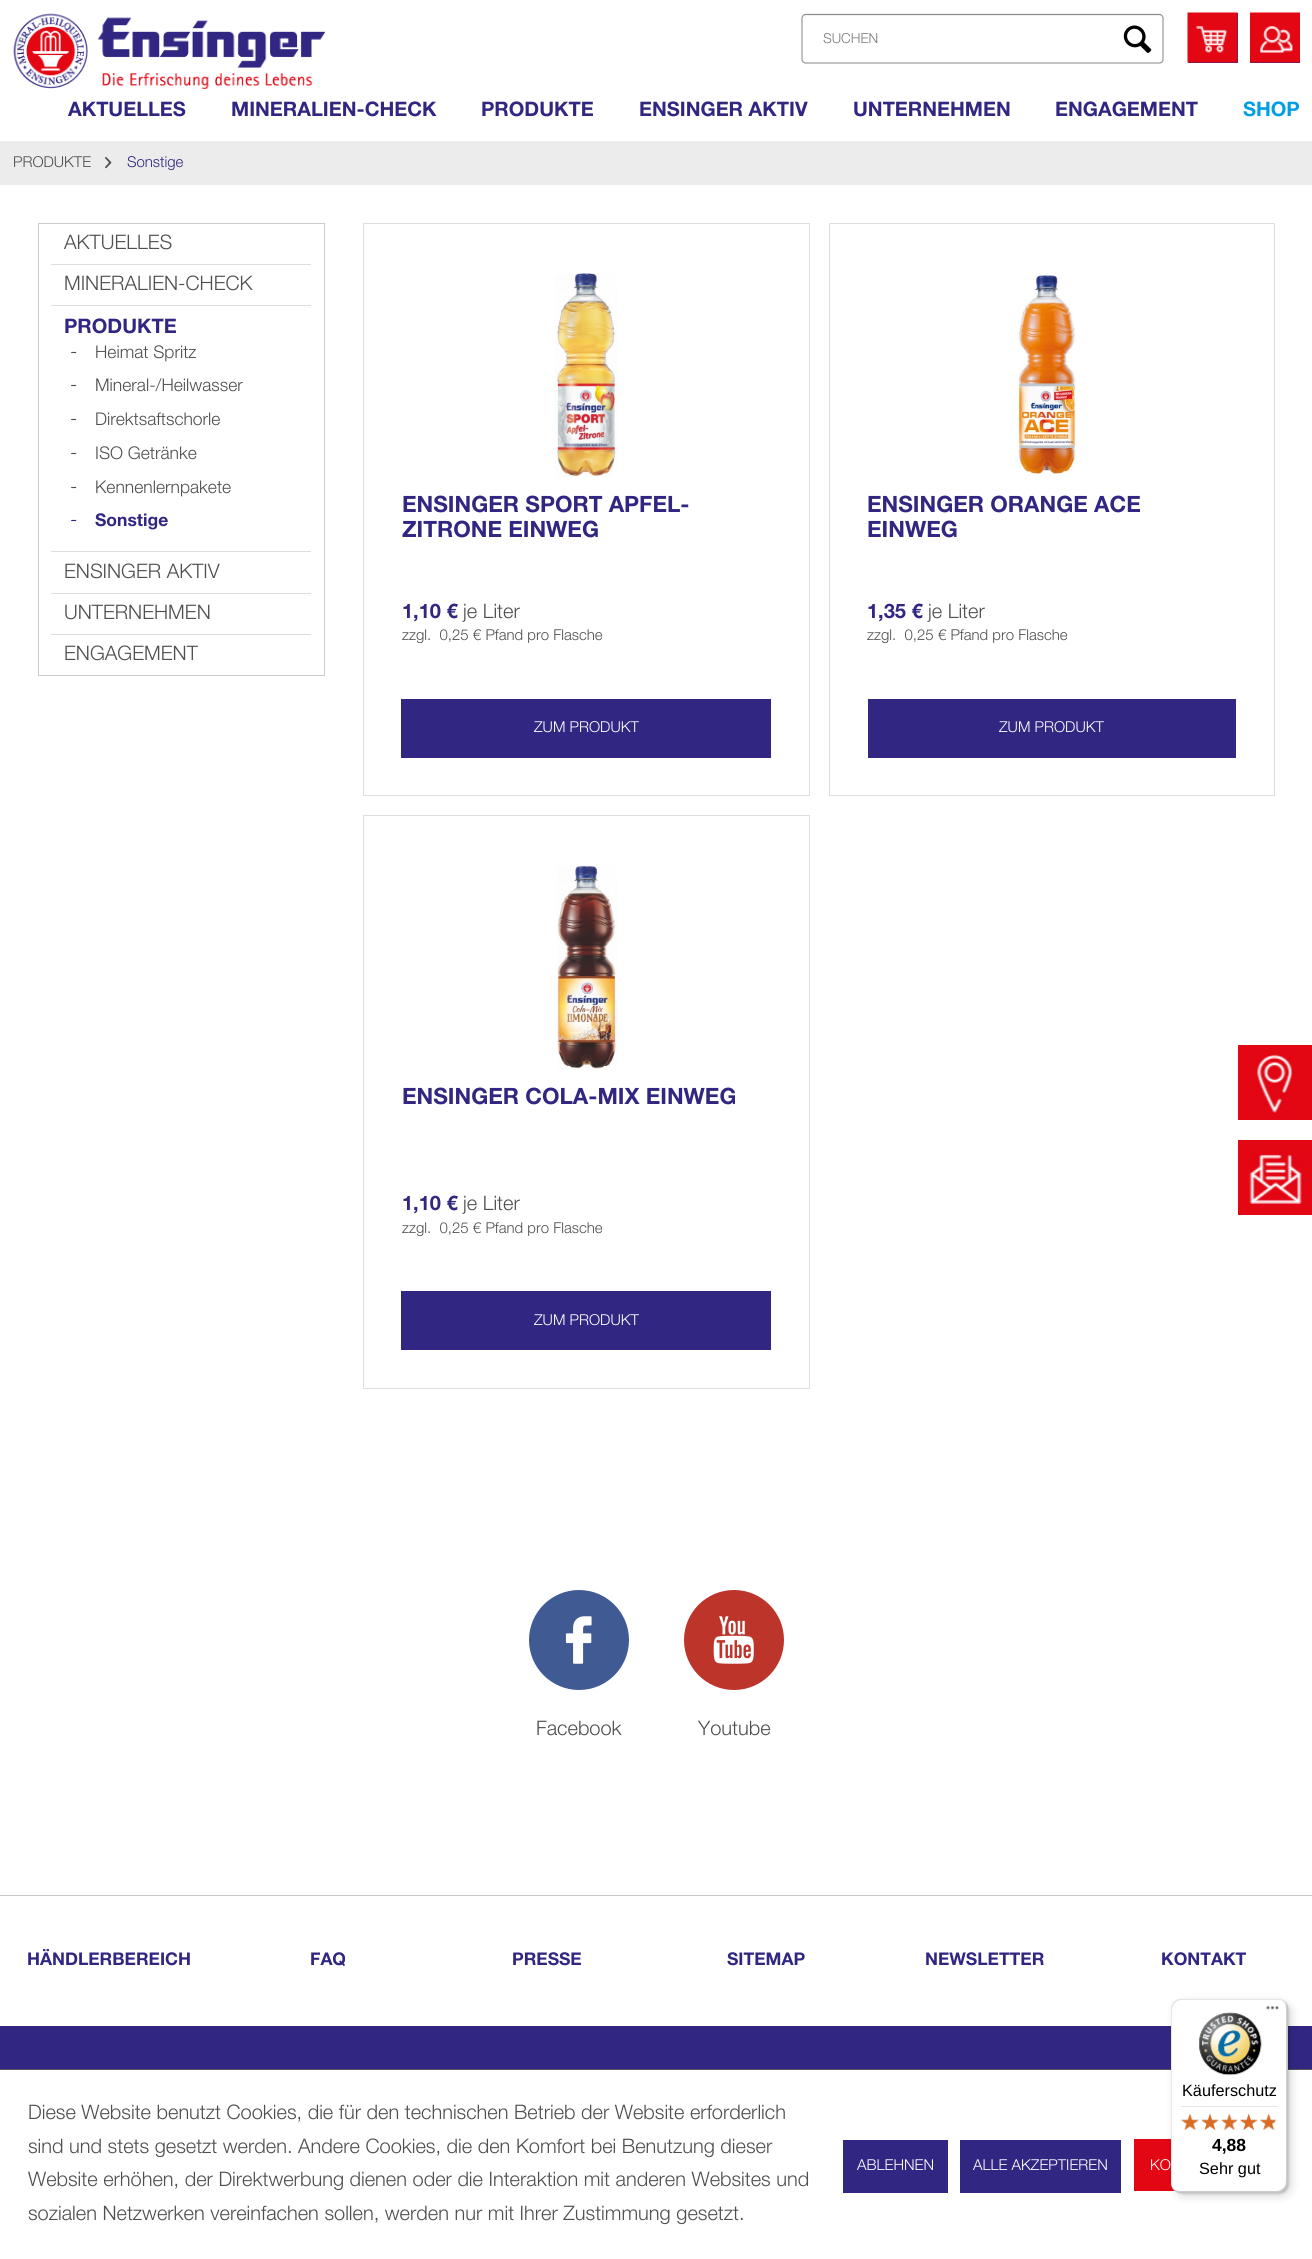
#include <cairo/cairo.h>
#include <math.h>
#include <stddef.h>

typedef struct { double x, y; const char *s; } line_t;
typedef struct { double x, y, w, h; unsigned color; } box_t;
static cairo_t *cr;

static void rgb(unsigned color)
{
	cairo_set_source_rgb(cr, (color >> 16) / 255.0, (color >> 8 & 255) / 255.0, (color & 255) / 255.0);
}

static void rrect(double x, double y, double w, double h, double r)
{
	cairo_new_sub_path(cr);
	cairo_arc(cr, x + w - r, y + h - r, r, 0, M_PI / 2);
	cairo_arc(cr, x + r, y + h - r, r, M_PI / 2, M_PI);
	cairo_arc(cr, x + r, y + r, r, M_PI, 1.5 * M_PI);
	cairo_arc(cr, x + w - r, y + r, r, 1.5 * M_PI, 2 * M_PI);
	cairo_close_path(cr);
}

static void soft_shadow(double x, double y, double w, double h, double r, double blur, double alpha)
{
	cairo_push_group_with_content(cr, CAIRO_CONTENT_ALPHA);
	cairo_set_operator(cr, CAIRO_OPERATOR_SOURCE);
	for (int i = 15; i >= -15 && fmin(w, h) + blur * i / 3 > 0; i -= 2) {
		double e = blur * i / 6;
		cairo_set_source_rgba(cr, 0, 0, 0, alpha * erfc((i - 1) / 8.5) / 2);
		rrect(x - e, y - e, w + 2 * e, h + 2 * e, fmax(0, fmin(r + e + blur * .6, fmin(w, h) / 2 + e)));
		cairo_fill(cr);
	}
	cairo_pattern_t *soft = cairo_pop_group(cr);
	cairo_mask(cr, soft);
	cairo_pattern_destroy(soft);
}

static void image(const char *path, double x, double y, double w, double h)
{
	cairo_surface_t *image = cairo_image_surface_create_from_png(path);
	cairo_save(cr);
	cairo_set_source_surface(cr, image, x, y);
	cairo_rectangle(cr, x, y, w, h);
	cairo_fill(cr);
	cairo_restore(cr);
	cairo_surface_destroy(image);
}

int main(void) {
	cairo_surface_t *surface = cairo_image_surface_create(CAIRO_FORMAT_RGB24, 1312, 2259);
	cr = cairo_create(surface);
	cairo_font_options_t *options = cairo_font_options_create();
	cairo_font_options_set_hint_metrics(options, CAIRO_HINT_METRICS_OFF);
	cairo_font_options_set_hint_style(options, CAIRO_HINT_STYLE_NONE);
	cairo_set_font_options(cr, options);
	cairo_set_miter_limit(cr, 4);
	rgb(0xffffff);
	cairo_paint(cr);
	image("img/1.png", 13, 13, 312, 76);
	cairo_new_path(cr);
	cairo_move_to(cr, 803, 15.5);
	cairo_line_to(cr, 805, 14.5);
	cairo_line_to(cr, 1160, 14.5);
	cairo_line_to(cr, 1162, 15.5);
	rgb(0x8c8c8c);
	cairo_set_line_width(cr, 1.2);
	cairo_stroke(cr);
	cairo_new_path(cr);
	cairo_move_to(cr, 1162, 15.5);
	cairo_line_to(cr, 1163, 17.5);
	cairo_line_to(cr, 1163, 60);
	cairo_line_to(cr, 1162, 62);
	cairo_line_to(cr, 1160, 63);
	cairo_line_to(cr, 805, 63);
	cairo_line_to(cr, 803, 62);
	cairo_line_to(cr, 802, 60);
	cairo_line_to(cr, 802, 17.5);
	cairo_line_to(cr, 803, 15.5);
	rgb(0x999999);
	cairo_stroke(cr);
	image("img/2.png", 1123, 25, 29, 28);
	rgb(0x312783);
	cairo_rectangle(cr, 1188, 13, 50, 50);
	cairo_fill(cr);
	image("img/3.png", 1187, 12, 51, 51);
	cairo_rectangle(cr, 1250, 62, 50, 1);
	cairo_fill(cr);
	image("img/4.png", 1250, 12, 50, 51);
	rgb(0xececec);
	cairo_rectangle(cr, 0, 141, 1312, 44);
	cairo_fill(cr);
	image("img/5.png", 105, 157, 7, 12);
	cairo_rectangle(cr, 38.5, 223.5, 286, 452);
	rgb(0xcccccc);
	cairo_set_line_width(cr, 1);
	cairo_stroke(cr);
	{
		static const box_t items[] = {
			{51, 264, 260, 1, 0xdfdede},
			{51, 305, 260, 1, 0xdfdede},
			{51, 551, 260, 1, 0xdfdede},
			{51, 593, 260, 1, 0xdfdede},
			{51, 634, 260, 1, 0xdfdede},
		};
		for (size_t i = 0; i < sizeof items / sizeof *items; i++) {
			rgb(items[i].color);
			cairo_rectangle(cr, items[i].x, items[i].y, items[i].w, items[i].h);
			cairo_fill(cr);
		}
	}
	cairo_rectangle(cr, 363.5, 223.5, 446, 572);
	cairo_stroke(cr);
	image("img/6.png", 555, 273, 63, 204);
	rgb(0x312783);
	cairo_rectangle(cr, 401, 699, 370, 59);
	cairo_fill(cr);
	cairo_rectangle(cr, 829.5, 223.5, 445, 572);
	rgb(0xdfdede);
	cairo_stroke(cr);
	image("img/7.png", 1017, 273, 60, 203);
	rgb(0x312783);
	cairo_rectangle(cr, 868, 699, 368, 59);
	cairo_fill(cr);
	cairo_rectangle(cr, 363.5, 815.5, 446, 573);
	rgb(0xdfdede);
	cairo_stroke(cr);
	image("img/8.png", 557, 865, 61, 205);
	rgb(0x312783);
	cairo_rectangle(cr, 401, 1291, 370, 59);
	cairo_fill(cr);
	rgb(0x405b94);
	cairo_arc(cr, 579, 1640, 50, 0, 2 * M_PI);
	cairo_fill(cr);
	image("img/9.png", 565, 1616, 27, 48);
	rgb(0xbd342b);
	cairo_arc(cr, 734, 1640, 50, 0, 2 * M_PI);
	cairo_fill(cr);
	image("img/10.png", 713, 1616, 41, 48);
	{
		static const box_t items[] = {
			{0, 1895, 1312, 1, 0xc8c8c8},
			{0, 2026, 1312, 43, 0x312783},
			{1238, 1045, 74, 75, 0xe30613},
		};
		for (size_t i = 0; i < sizeof items / sizeof *items; i++) {
			rgb(items[i].color);
			cairo_rectangle(cr, items[i].x, items[i].y, items[i].w, items[i].h);
			cairo_fill(cr);
		}
	}
	image("img/11.png", 1256, 1054, 37, 59);
	cairo_rectangle(cr, 1238, 1140, 74, 75);
	cairo_fill(cr);
	image("img/12.png", 1249, 1154, 53, 50);
	{
		static const box_t items[] = {
			{0, 2069, 1312, 1, 0x555657},
			{843, 2140, 105, 53, 0x312783},
			{960, 2140, 161, 53, 0x312783},
			{1134, 2139, 41, 52, 0xe30613},
		};
		for (size_t i = 0; i < sizeof items / sizeof *items; i++) {
			rgb(items[i].color);
			cairo_rectangle(cr, items[i].x, items[i].y, items[i].w, items[i].h);
			cairo_fill(cr);
		}
	}
	rgb(0x000000);
	soft_shadow(1175, 2003, 116, 193, 10, 5, 0.15);
	soft_shadow(1173, 2000, 116, 194, 10, 1, 0.15);
	rgb(0xffffff);
	rrect(1171, 1999, 117, 194, 10);
	cairo_fill(cr);
	cairo_set_source_rgba(cr, 0, 0, 0, 0.1);
	cairo_new_path(cr);
	cairo_move_to(cr, 1182, 2000);
	cairo_line_to(cr, 1279, 2000);
	cairo_curve_to(cr, 1281, 2000, 1284, 2001, 1286, 2003);
	cairo_curve_to(cr, 1284, 2000, 1281, 1999, 1278, 1999);
	cairo_line_to(cr, 1181, 1999);
	cairo_curve_to(cr, 1175, 1999, 1171, 2003, 1171, 2009);
	cairo_line_to(cr, 1171, 2183);
	cairo_curve_to(cr, 1171, 2187, 1173, 2190, 1176, 2192);
	cairo_curve_to(cr, 1174, 2190, 1172, 2187, 1172, 2184);
	cairo_line_to(cr, 1172, 2010);
	cairo_curve_to(cr, 1172, 2004, 1177, 2000, 1182, 2000);
	cairo_close_path(cr);
	cairo_fill(cr);
	cairo_set_source_rgba(cr, 0, 0, 0, 0.2);
	cairo_new_path(cr);
	cairo_move_to(cr, 1172, 2187);
	cairo_curve_to(cr, 1174, 2191, 1177, 2193, 1181, 2193);
	cairo_line_to(cr, 1278, 2193);
	cairo_curve_to(cr, 1284, 2193, 1288, 2189, 1288, 2183);
	cairo_line_to(cr, 1288, 2009);
	cairo_curve_to(cr, 1288, 2005, 1286, 2002, 1282, 2000);
	cairo_curve_to(cr, 1285, 2002, 1286, 2005, 1286, 2008);
	cairo_line_to(cr, 1286, 2181);
	cairo_curve_to(cr, 1286, 2187, 1282, 2191, 1276, 2191);
	cairo_line_to(cr, 1180, 2191);
	cairo_curve_to(cr, 1177, 2191, 1174, 2190, 1172, 2187);
	cairo_close_path(cr);
	cairo_fill(cr);
	cairo_set_source_rgba(cr, 0.196, 0.196, 0.196, 0.2);
	cairo_new_path(cr);
	cairo_move_to(cr, 1172, 2188);
	cairo_curve_to(cr, 1174, 2191, 1177, 2193, 1181, 2193);
	cairo_line_to(cr, 1278, 2193);
	cairo_curve_to(cr, 1284, 2193, 1288, 2189, 1288, 2183);
	cairo_line_to(cr, 1288, 2009);
	cairo_curve_to(cr, 1288, 2006, 1287, 2003, 1285, 2001);
	cairo_curve_to(cr, 1286, 2003, 1287, 2005, 1287, 2008);
	cairo_line_to(cr, 1287, 2182);
	cairo_curve_to(cr, 1287, 2187, 1282, 2192, 1277, 2192);
	cairo_line_to(cr, 1180, 2192);
	cairo_curve_to(cr, 1177, 2192, 1174, 2190, 1172, 2188);
	cairo_close_path(cr);
	cairo_fill(cr);
	cairo_set_source_rgba(cr, 1, 1, 1, 0.3);
	cairo_new_path(cr);
	cairo_move_to(cr, 1171, 2182);
	cairo_line_to(cr, 1171, 2183);
	cairo_curve_to(cr, 1171, 2189, 1175, 2193, 1181, 2193);
	cairo_line_to(cr, 1278, 2193);
	cairo_curve_to(cr, 1284, 2193, 1288, 2189, 1288, 2183);
	cairo_line_to(cr, 1288, 2009);
	cairo_curve_to(cr, 1288, 2005, 1286, 2002, 1283, 2000);
	cairo_curve_to(cr, 1285, 2002, 1287, 2005, 1287, 2008);
	cairo_line_to(cr, 1287, 2182);
	cairo_curve_to(cr, 1287, 2187, 1282, 2192, 1277, 2192);
	cairo_line_to(cr, 1181, 2192);
	cairo_curve_to(cr, 1175, 2192, 1171, 2187, 1171, 2182);
	cairo_close_path(cr);
	cairo_fill(cr);
	image("img/13.png", 1266, 2006, 13, 4);
	image("img/14.png", 1199, 2012, 63, 64);
	rgb(0xe5e5e5);
	cairo_rectangle(cr, 1181, 2106, 97, 1);
	cairo_fill(cr);
	image("img/15.png", 1181, 2114, 18, 16);
	image("img/16.png", 1202, 2114, 16, 16);
	image("img/17.png", 1221, 2114, 17, 16);
	image("img/18.png", 1240, 2113, 17, 17);
	image("img/19.png", 1260, 2114, 18, 16);
	image("img/20.png", 1181, 2113, 18, 17);
	image("img/21.png", 1201, 2113, 18, 17);
	image("img/22.png", 1221, 2113, 17, 17);
	image("img/23.png", 1240, 2113, 17, 17);
	image("img/24.png", 1260, 2113, 15, 17);
	cairo_select_font_face(cr, "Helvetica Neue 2", CAIRO_FONT_SLANT_NORMAL, CAIRO_FONT_WEIGHT_NORMAL);
	cairo_set_font_size(cr, 13.75);
	rgb(0x7b7c7e);
	cairo_move_to(cr, 823, 43);
	cairo_show_text(cr, "SUCHEN");
	cairo_select_font_face(cr, "Helvetica Neue", CAIRO_FONT_SLANT_NORMAL, CAIRO_FONT_WEIGHT_NORMAL);
	cairo_set_font_size(cr, 20);
	rgb(0x312783);
	{
		static const line_t items[] = {
			{68, 116, "AKTUELLES"},
			{231, 116, "MINERALIEN-CHECK"},
			{481, 116, "PRODUKTE"},
			{639, 116, "ENSINGER AKTIV"},
			{853, 116, "UNTERNEHMEN"},
			{1055, 116, "ENGAGEMENT"},
		};
		for (size_t i = 0; i < sizeof items / sizeof *items; i++) {
			cairo_move_to(cr, items[i].x, items[i].y);
			cairo_show_text(cr, items[i].s);
		}
	}
	rgb(0x009fe3);
	cairo_move_to(cr, 1243, 116);
	cairo_show_text(cr, "SHOP");
	cairo_select_font_face(cr, "Helvetica Neue 2", CAIRO_FONT_SLANT_NORMAL, CAIRO_FONT_WEIGHT_NORMAL);
	cairo_set_font_size(cr, 15);
	rgb(0x4f4f4f);
	cairo_move_to(cr, 13, 167);
	cairo_show_text(cr, "PRODUKTE");
	rgb(0x312783);
	cairo_move_to(cr, 127, 167);
	cairo_show_text(cr, "Sonstige");
	cairo_set_font_size(cr, 20);
	rgb(0x4f4f4f);
	cairo_move_to(cr, 64, 249);
	cairo_show_text(cr, "AKTUELLES");
	cairo_move_to(cr, 64, 290);
	cairo_show_text(cr, "MINERALIEN-CHECK");
	cairo_select_font_face(cr, "Helvetica Neue", CAIRO_FONT_SLANT_NORMAL, CAIRO_FONT_WEIGHT_NORMAL);
	rgb(0x312783);
	cairo_move_to(cr, 64, 333);
	cairo_show_text(cr, "PRODUKTE");
	cairo_select_font_face(cr, "Helvetica Neue 2", CAIRO_FONT_SLANT_NORMAL, CAIRO_FONT_WEIGHT_NORMAL);
	rgb(0x4f4f4f);
	cairo_move_to(cr, 70, 358);
	cairo_show_text(cr, "-");
	cairo_set_font_size(cr, 17.5);
	cairo_move_to(cr, 95, 358);
	cairo_show_text(cr, "Heimat Spritz");
	cairo_set_font_size(cr, 20);
	cairo_move_to(cr, 70, 391);
	cairo_show_text(cr, "-");
	cairo_set_font_size(cr, 17.5);
	cairo_move_to(cr, 95, 391);
	cairo_show_text(cr, "Mineral-/Heilwasser");
	cairo_set_font_size(cr, 20);
	cairo_move_to(cr, 70, 425);
	cairo_show_text(cr, "-");
	cairo_set_font_size(cr, 17.5);
	cairo_move_to(cr, 95, 425);
	cairo_show_text(cr, "Direktsaftschorle");
	cairo_set_font_size(cr, 20);
	cairo_move_to(cr, 70, 459);
	cairo_show_text(cr, "-");
	cairo_set_font_size(cr, 17.5);
	cairo_move_to(cr, 95, 459);
	cairo_show_text(cr, "ISO Getränke");
	cairo_set_font_size(cr, 20);
	cairo_move_to(cr, 70, 493);
	cairo_show_text(cr, "-");
	cairo_set_font_size(cr, 17.5);
	cairo_move_to(cr, 95, 493);
	cairo_show_text(cr, "Kennenlernpakete");
	cairo_set_font_size(cr, 20);
	rgb(0x312783);
	cairo_move_to(cr, 70, 526);
	cairo_show_text(cr, "-");
	cairo_select_font_face(cr, "Helvetica Neue", CAIRO_FONT_SLANT_NORMAL, CAIRO_FONT_WEIGHT_NORMAL);
	cairo_set_font_size(cr, 17.5);
	cairo_move_to(cr, 95, 526);
	cairo_show_text(cr, "Sonstige");
	cairo_select_font_face(cr, "Helvetica Neue 2", CAIRO_FONT_SLANT_NORMAL, CAIRO_FONT_WEIGHT_NORMAL);
	cairo_set_font_size(cr, 20);
	rgb(0x4f4f4f);
	{
		static const line_t items[] = {
			{64, 578, "ENSINGER AKTIV"},
			{64, 619, "UNTERNEHMEN"},
			{64, 660, "ENGAGEMENT"},
		};
		for (size_t i = 0; i < sizeof items / sizeof *items; i++) {
			cairo_move_to(cr, items[i].x, items[i].y);
			cairo_show_text(cr, items[i].s);
		}
	}
	cairo_select_font_face(cr, "Helvetica Neue", CAIRO_FONT_SLANT_NORMAL, CAIRO_FONT_WEIGHT_NORMAL);
	cairo_set_font_size(cr, 22.5);
	rgb(0x312783);
	cairo_move_to(cr, 402, 512);
	cairo_show_text(cr, "ENSINGER SPORT APFEL-");
	cairo_move_to(cr, 402, 537);
	cairo_show_text(cr, "ZITRONE EINWEG");
	cairo_set_font_size(cr, 20);
	cairo_move_to(cr, 402, 618);
	cairo_show_text(cr, "1,10 €");
	cairo_select_font_face(cr, "Helvetica Neue 2", CAIRO_FONT_SLANT_NORMAL, CAIRO_FONT_WEIGHT_NORMAL);
	rgb(0x4f4f4f);
	cairo_move_to(cr, 463, 618);
	cairo_show_text(cr, "je Liter");
	cairo_set_font_size(cr, 15);
	cairo_move_to(cr, 402, 640);
	cairo_show_text(cr, "zzgl.  0,25 € Pfand pro Flasche");
	rgb(0xffffff);
	cairo_move_to(cr, 534, 732);
	cairo_show_text(cr, "ZUM PRODUKT");
	cairo_select_font_face(cr, "Helvetica Neue", CAIRO_FONT_SLANT_NORMAL, CAIRO_FONT_WEIGHT_NORMAL);
	cairo_set_font_size(cr, 22.5);
	rgb(0x312783);
	cairo_move_to(cr, 867, 512);
	cairo_show_text(cr, "ENSINGER ORANGE ACE");
	cairo_move_to(cr, 867, 537);
	cairo_show_text(cr, "EINWEG");
	cairo_set_font_size(cr, 20);
	cairo_move_to(cr, 867, 618);
	cairo_show_text(cr, "1,35 €");
	cairo_select_font_face(cr, "Helvetica Neue 2", CAIRO_FONT_SLANT_NORMAL, CAIRO_FONT_WEIGHT_NORMAL);
	rgb(0x4f4f4f);
	cairo_move_to(cr, 928, 618);
	cairo_show_text(cr, "je Liter");
	cairo_set_font_size(cr, 15);
	cairo_move_to(cr, 867, 640);
	cairo_show_text(cr, "zzgl.  0,25 € Pfand pro Flasche");
	rgb(0xffffff);
	cairo_move_to(cr, 999, 732);
	cairo_show_text(cr, "ZUM PRODUKT");
	cairo_select_font_face(cr, "Helvetica Neue", CAIRO_FONT_SLANT_NORMAL, CAIRO_FONT_WEIGHT_NORMAL);
	cairo_set_font_size(cr, 22.5);
	rgb(0x312783);
	cairo_move_to(cr, 402, 1104);
	cairo_show_text(cr, "ENSINGER COLA-MIX EINWEG");
	cairo_set_font_size(cr, 20);
	cairo_move_to(cr, 402, 1210);
	cairo_show_text(cr, "1,10 €");
	cairo_select_font_face(cr, "Helvetica Neue 2", CAIRO_FONT_SLANT_NORMAL, CAIRO_FONT_WEIGHT_NORMAL);
	rgb(0x4f4f4f);
	cairo_move_to(cr, 463, 1210);
	cairo_show_text(cr, "je Liter");
	cairo_set_font_size(cr, 15);
	cairo_move_to(cr, 402, 1233);
	cairo_show_text(cr, "zzgl.  0,25 € Pfand pro Flasche");
	rgb(0xffffff);
	cairo_move_to(cr, 534, 1325);
	cairo_show_text(cr, "ZUM PRODUKT");
	cairo_set_font_size(cr, 20);
	rgb(0x4f4f4f);
	cairo_move_to(cr, 536, 1735);
	cairo_show_text(cr, "Facebook");
	cairo_move_to(cr, 698, 1735);
	cairo_show_text(cr, "Youtube");
	cairo_select_font_face(cr, "Helvetica Neue", CAIRO_FONT_SLANT_NORMAL, CAIRO_FONT_WEIGHT_NORMAL);
	cairo_set_font_size(cr, 17.5);
	rgb(0x312783);
	{
		static const line_t items[] = {
			{27, 1965, "HÄNDLERBEREICH"},
			{310, 1965, "FAQ"},
			{512, 1965, "PRESSE"},
			{727, 1965, "SITEMAP"},
			{925, 1965, "NEWSLETTER"},
			{1161, 1965, "KONTAKT"},
		};
		for (size_t i = 0; i < sizeof items / sizeof *items; i++) {
			cairo_move_to(cr, items[i].x, items[i].y);
			cairo_show_text(cr, items[i].s);
		}
	}
	cairo_select_font_face(cr, "Helvetica Neue 2", CAIRO_FONT_SLANT_NORMAL, CAIRO_FONT_WEIGHT_NORMAL);
	cairo_set_font_size(cr, 20);
	rgb(0x4f4f4f);
	{
		static const line_t items[] = {
			{28, 2119, "Diese Website benutzt Cookies, die für den technischen Betrieb der Website erforderlich"},
			{28, 2153, "sind und stets gesetzt werden. Andere Cookies, die den Komfort bei Benutzung dieser"},
			{28, 2186, "Website erhöhen, der Direktwerbung dienen oder die Interaktion mit anderen Websites und"},
			{28, 2220, "sozialen Netzwerken vereinfachen sollen, werden nur mit Ihrer Zustimmung gesetzt."},
		};
		for (size_t i = 0; i < sizeof items / sizeof *items; i++) {
			cairo_move_to(cr, items[i].x, items[i].y);
			cairo_show_text(cr, items[i].s);
		}
	}
	cairo_set_font_size(cr, 15);
	rgb(0xffffff);
	{
		static const line_t items[] = {
			{857, 2170, "ABLEHNEN"},
			{973, 2170, "ALLE AKZEPTIEREN"},
			{1150, 2170, "KO"},
		};
		for (size_t i = 0; i < sizeof items / sizeof *items; i++) {
			cairo_move_to(cr, items[i].x, items[i].y);
			cairo_show_text(cr, items[i].s);
		}
	}
	cairo_select_font_face(cr, "Liberation Sans", CAIRO_FONT_SLANT_NORMAL, CAIRO_FONT_WEIGHT_NORMAL);
	cairo_set_font_size(cr, 16.25);
	rgb(0x000000);
	cairo_move_to(cr, 1182, 2096);
	cairo_show_text(cr, "Käuferschutz");
	cairo_select_font_face(cr, "Liberation Sans", CAIRO_FONT_SLANT_NORMAL, CAIRO_FONT_WEIGHT_BOLD);
	cairo_set_font_size(cr, 17.5);
	cairo_move_to(cr, 1212, 2151);
	cairo_show_text(cr, "4,88");
	cairo_select_font_face(cr, "Liberation Sans", CAIRO_FONT_SLANT_NORMAL, CAIRO_FONT_WEIGHT_NORMAL);
	cairo_set_font_size(cr, 16.25);
	cairo_move_to(cr, 1199, 2174);
	cairo_show_text(cr, "Sehr gut");
	cairo_surface_write_to_png(surface, "page.png");
	cairo_font_options_destroy(options);
	cairo_destroy(cr);
	cairo_surface_destroy(surface);
	return 0;
}
